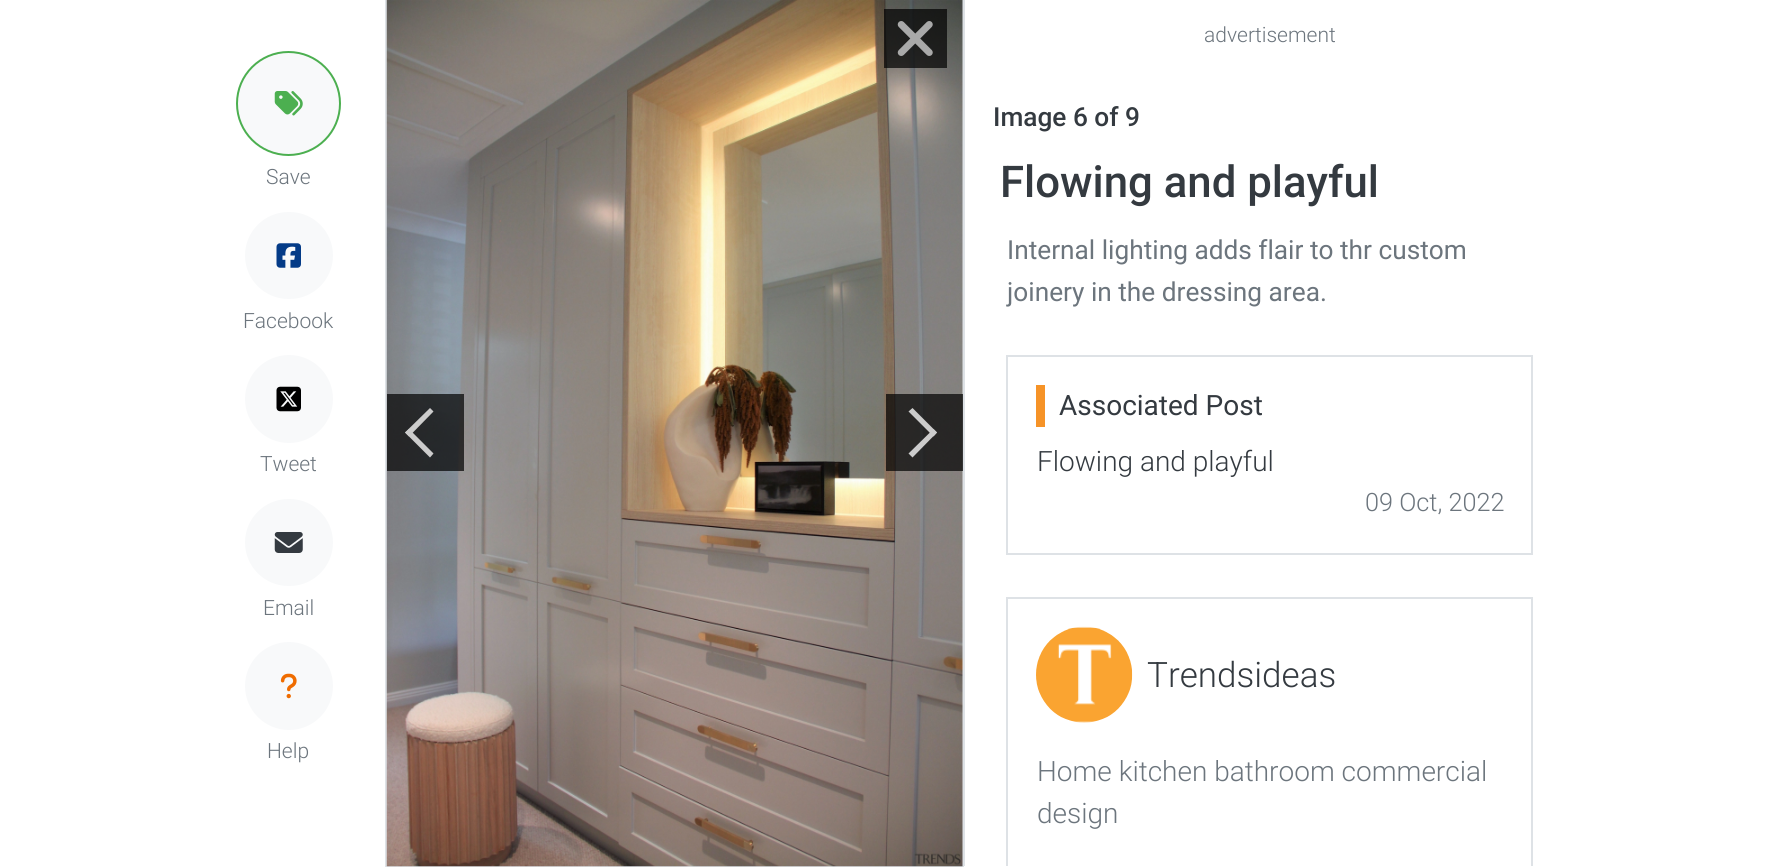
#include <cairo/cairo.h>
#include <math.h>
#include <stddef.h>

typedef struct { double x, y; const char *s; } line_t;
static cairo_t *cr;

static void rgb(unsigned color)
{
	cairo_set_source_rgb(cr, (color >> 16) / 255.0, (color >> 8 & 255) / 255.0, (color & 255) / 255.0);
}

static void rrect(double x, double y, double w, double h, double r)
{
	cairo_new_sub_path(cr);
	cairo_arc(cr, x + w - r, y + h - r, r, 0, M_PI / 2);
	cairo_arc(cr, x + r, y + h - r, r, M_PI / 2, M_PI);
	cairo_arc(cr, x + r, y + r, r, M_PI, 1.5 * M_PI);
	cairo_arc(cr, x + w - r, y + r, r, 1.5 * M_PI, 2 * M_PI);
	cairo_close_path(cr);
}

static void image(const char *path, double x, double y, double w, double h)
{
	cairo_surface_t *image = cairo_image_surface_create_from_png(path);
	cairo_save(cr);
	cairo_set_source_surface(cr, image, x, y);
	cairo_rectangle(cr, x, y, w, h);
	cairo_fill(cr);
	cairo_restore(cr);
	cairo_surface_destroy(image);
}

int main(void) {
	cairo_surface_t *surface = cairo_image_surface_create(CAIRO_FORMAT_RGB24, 1767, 867);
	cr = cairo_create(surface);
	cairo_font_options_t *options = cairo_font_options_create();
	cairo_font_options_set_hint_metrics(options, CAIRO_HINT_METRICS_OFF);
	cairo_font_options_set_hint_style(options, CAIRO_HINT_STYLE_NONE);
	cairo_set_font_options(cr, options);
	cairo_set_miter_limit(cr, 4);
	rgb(0xffffff);
	cairo_paint(cr);
	rgb(0xf8f9fa);
	cairo_arc(cr, 288.5, 103.5, 51.5, 0, 2 * M_PI);
	cairo_fill_preserve(cr);
	rgb(0x4caf50);
	cairo_stroke(cr);
	image("img/1.png", 274, 91, 29, 25);
	rgb(0xf8f9fa);
	rrect(245, 212, 88, 87, 43.5);
	cairo_fill(cr);
	image("img/2.png", 276, 243, 25, 25);
	cairo_arc(cr, 289, 399, 44, 0, 2 * M_PI);
	cairo_fill(cr);
	image("img/3.png", 276, 386, 25, 26);
	rrect(245, 499, 88, 87, 43.5);
	cairo_fill(cr);
	image("img/4.png", 274, 532, 29, 21);
	cairo_arc(cr, 289, 686, 44, 0, 2 * M_PI);
	cairo_fill(cr);
	image("img/5.png", 280, 673, 17, 26);
	cairo_rectangle(cr, 386, -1, 577, 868);
	rgb(0xdee2e6);
	cairo_stroke(cr);
	image("img/6.png", 386, 0, 577, 867);
	cairo_set_source_rgba(cr, 0, 0, 0, 0.7);
	cairo_rectangle(cr, 884, 9, 63, 59);
	cairo_fill(cr);
	image("img/7.png", 897, 21, 36, 35);
	cairo_rectangle(cr, 387, 394, 77, 77);
	cairo_fill(cr);
	rgb(0xcccccc);
	cairo_new_path(cr);
	cairo_move_to(cr, 405, 432.5);
	cairo_line_to(cr, 430, 408);
	cairo_line_to(cr, 433.5, 411.5);
	cairo_line_to(cr, 409, 436.5);
	cairo_close_path(cr);
	cairo_fill(cr);
	cairo_new_path(cr);
	cairo_move_to(cr, 405, 432.5);
	cairo_line_to(cr, 409, 429);
	cairo_line_to(cr, 433.5, 453.5);
	cairo_line_to(cr, 430, 457.5);
	cairo_close_path(cr);
	cairo_fill(cr);
	cairo_set_source_rgba(cr, 0, 0, 0, 0.7);
	cairo_rectangle(cr, 886, 394, 77, 77);
	cairo_fill(cr);
	rgb(0xcccccc);
	cairo_new_path(cr);
	cairo_move_to(cr, 912.5, 408);
	cairo_line_to(cr, 937, 432.5);
	cairo_line_to(cr, 933.5, 436.5);
	cairo_line_to(cr, 908.5, 411.5);
	cairo_close_path(cr);
	cairo_fill(cr);
	cairo_new_path(cr);
	cairo_move_to(cr, 933.5, 429);
	cairo_line_to(cr, 937, 432.5);
	cairo_line_to(cr, 912.5, 457.5);
	cairo_line_to(cr, 908.5, 453.5);
	cairo_close_path(cr);
	cairo_fill(cr);
	rgb(0xdee2e6);
	cairo_rectangle(cr, 964, 0, 1, 866);
	cairo_fill(cr);
	cairo_rectangle(cr, 1007, 356, 525, 198);
	cairo_stroke(cr);
	rgb(0xf69327);
	cairo_rectangle(cr, 1036, 385, 9, 42);
	cairo_fill(cr);
	cairo_save(cr);
	cairo_rectangle(cr, 966, 0, 607, 866);
	cairo_clip(cr);
	cairo_rectangle(cr, 1007, 598, 525, 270);
	rgb(0xdee2e6);
	cairo_stroke(cr);
	cairo_restore(cr);
	image("img/8.png", 1036, 626, 97, 97);
	cairo_select_font_face(cr, "Roboto Light", CAIRO_FONT_SLANT_NORMAL, CAIRO_FONT_WEIGHT_NORMAL);
	cairo_set_font_size(cr, 21);
	rgb(0x6c757d);
	{
		static const line_t items[] = {
			{266, 184, "Save"},
			{243, 328, "Facebook"},
			{260, 471, "Tweet"},
			{263, 615, "Email"},
			{267, 758, "Help"},
			{1204, 42, "advertisement"},
		};
		for (size_t i = 0; i < sizeof items / sizeof *items; i++) {
			cairo_move_to(cr, items[i].x, items[i].y);
			cairo_show_text(cr, items[i].s);
		}
	}
	cairo_select_font_face(cr, "Roboto Medium", CAIRO_FONT_SLANT_NORMAL, CAIRO_FONT_WEIGHT_NORMAL);
	cairo_set_font_size(cr, 26.25);
	rgb(0x343a40);
	cairo_move_to(cr, 993, 126);
	cairo_show_text(cr, "Image 6 of 9");
	cairo_set_font_size(cr, 43.75);
	cairo_move_to(cr, 1000, 197);
	cairo_show_text(cr, "Flowing and playful");
	cairo_select_font_face(cr, "Roboto", CAIRO_FONT_SLANT_NORMAL, CAIRO_FONT_WEIGHT_NORMAL);
	cairo_set_font_size(cr, 26.25);
	rgb(0x6c757d);
	cairo_move_to(cr, 1007, 259);
	cairo_show_text(cr, "Internal lighting adds flair to thr custom");
	cairo_move_to(cr, 1007, 301);
	cairo_show_text(cr, "joinery in the dressing area.");
	cairo_set_font_size(cr, 28);
	rgb(0x343a40);
	cairo_move_to(cr, 1059, 415);
	cairo_show_text(cr, "Associated Post");
	cairo_select_font_face(cr, "Roboto Light", CAIRO_FONT_SLANT_NORMAL, CAIRO_FONT_WEIGHT_NORMAL);
	cairo_move_to(cr, 1037, 471);
	cairo_show_text(cr, "Flowing and playful");
	cairo_set_font_size(cr, 25.25);
	rgb(0x6c757d);
	cairo_move_to(cr, 1365, 511);
	cairo_show_text(cr, "09 Oct, 2022");
	cairo_set_font_size(cr, 35);
	rgb(0x343a40);
	cairo_move_to(cr, 1147, 687);
	cairo_show_text(cr, "Trendsideas");
	cairo_set_font_size(cr, 28);
	rgb(0x6c757d);
	cairo_move_to(cr, 1037, 781);
	cairo_show_text(cr, "Home kitchen bathroom commercial");
	cairo_move_to(cr, 1037, 823);
	cairo_show_text(cr, "design");
	cairo_surface_write_to_png(surface, "page.png");
	cairo_font_options_destroy(options);
	cairo_destroy(cr);
	cairo_surface_destroy(surface);
	return 0;
}
